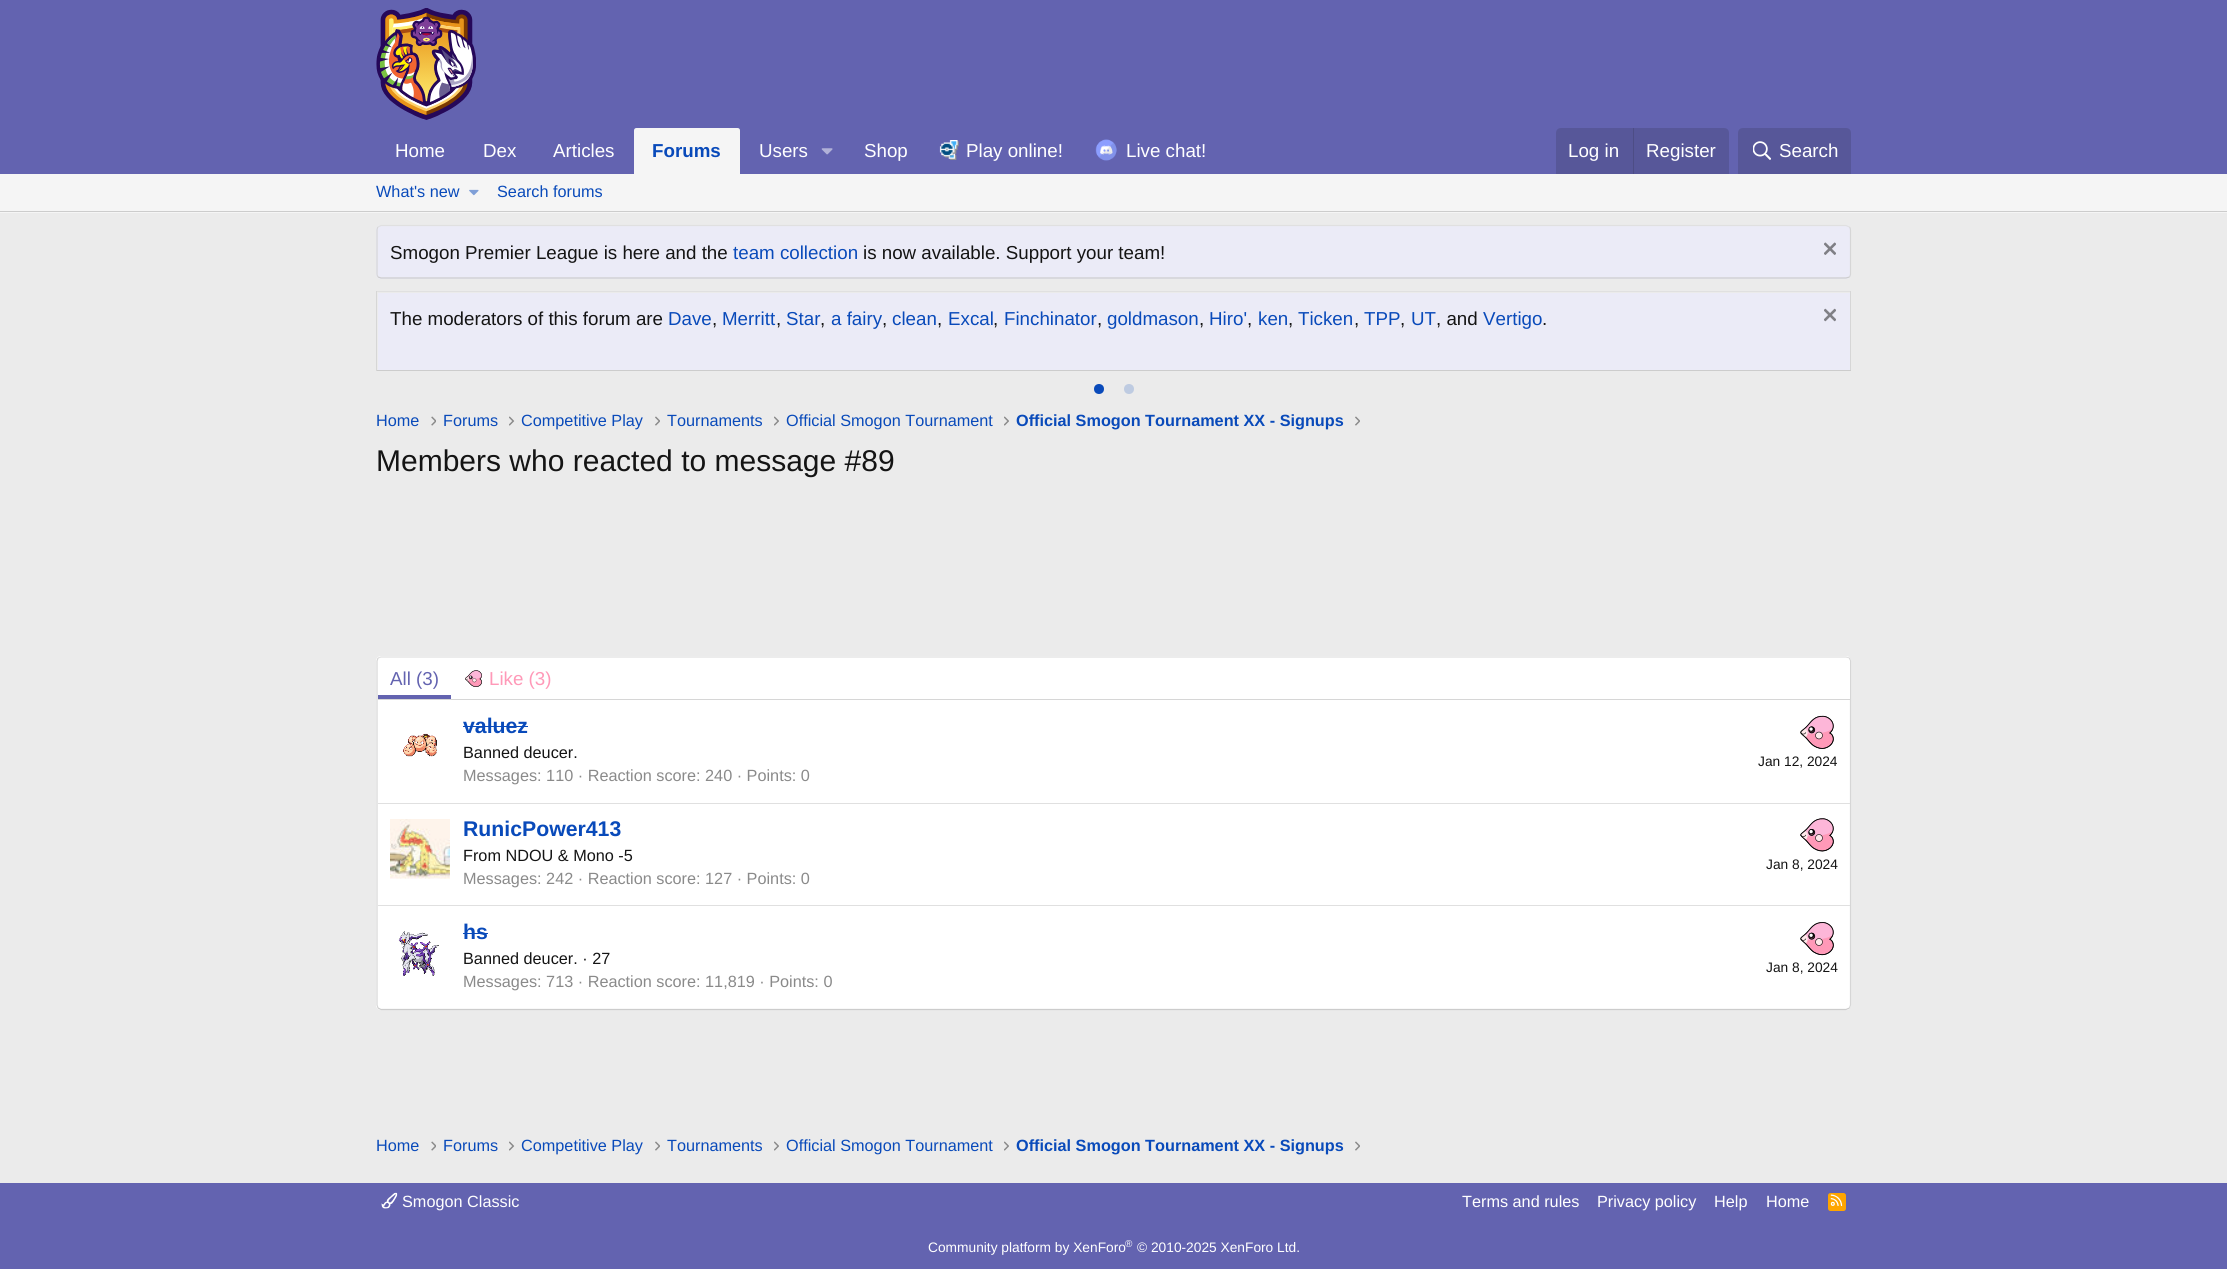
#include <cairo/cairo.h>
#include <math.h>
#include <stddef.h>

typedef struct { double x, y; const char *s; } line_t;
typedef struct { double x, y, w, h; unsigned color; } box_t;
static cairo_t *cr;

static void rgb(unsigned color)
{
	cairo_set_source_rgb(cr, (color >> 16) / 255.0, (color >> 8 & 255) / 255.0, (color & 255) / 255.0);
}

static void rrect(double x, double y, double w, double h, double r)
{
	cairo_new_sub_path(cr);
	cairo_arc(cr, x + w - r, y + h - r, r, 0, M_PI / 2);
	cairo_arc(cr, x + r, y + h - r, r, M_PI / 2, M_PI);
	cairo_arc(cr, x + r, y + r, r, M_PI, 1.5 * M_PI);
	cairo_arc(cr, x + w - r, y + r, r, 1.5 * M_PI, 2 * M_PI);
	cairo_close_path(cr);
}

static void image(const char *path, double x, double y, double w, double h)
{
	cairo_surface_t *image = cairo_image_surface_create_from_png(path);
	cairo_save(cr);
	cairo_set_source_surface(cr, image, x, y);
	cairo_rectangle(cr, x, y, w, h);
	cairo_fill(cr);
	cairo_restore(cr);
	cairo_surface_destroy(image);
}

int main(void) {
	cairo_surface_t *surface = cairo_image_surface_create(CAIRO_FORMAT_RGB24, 2227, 1269);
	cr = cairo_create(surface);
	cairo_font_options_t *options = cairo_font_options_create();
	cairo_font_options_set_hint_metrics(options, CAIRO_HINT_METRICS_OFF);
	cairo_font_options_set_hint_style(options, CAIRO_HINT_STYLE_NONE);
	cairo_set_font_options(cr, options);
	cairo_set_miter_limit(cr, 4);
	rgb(0xebebeb);
	cairo_paint(cr);
	rgb(0x6363b0);
	cairo_rectangle(cr, 0, 0, 2227, 174);
	cairo_fill(cr);
	image("img/1.png", 376, 8, 100, 112);
	rgb(0xf5f5f5);
	cairo_new_path(cr);
	cairo_move_to(cr, 636.5, 128);
	cairo_line_to(cr, 737.5, 128);
	cairo_curve_to(cr, 739, 128, 740, 129, 740, 130.5);
	cairo_line_to(cr, 740, 174);
	cairo_line_to(cr, 634, 174);
	cairo_line_to(cr, 634, 130.5);
	cairo_curve_to(cr, 634, 129, 635, 128, 636.5, 128);
	cairo_close_path(cr);
	cairo_fill(cr);
	image("img/2.png", 821, 148, 12, 7);
	image("img/3.png", 939, 140, 20, 20);
	image("img/4.png", 1095, 139, 22, 22);
	rgb(0x575799);
	cairo_new_path(cr);
	cairo_move_to(cr, 1561, 128);
	cairo_line_to(cr, 1724, 128);
	cairo_curve_to(cr, 1727, 128, 1729, 130, 1729, 133);
	cairo_line_to(cr, 1729, 174);
	cairo_line_to(cr, 1556, 174);
	cairo_line_to(cr, 1556, 133);
	cairo_curve_to(cr, 1556, 130, 1558, 128, 1561, 128);
	cairo_close_path(cr);
	cairo_fill(cr);
	rgb(0x4d4d85);
	cairo_rectangle(cr, 1633, 128, 1, 46);
	cairo_fill(cr);
	rgb(0x575799);
	cairo_new_path(cr);
	cairo_move_to(cr, 1743, 128);
	cairo_line_to(cr, 1846, 128);
	cairo_curve_to(cr, 1849, 128, 1851, 130, 1851, 133);
	cairo_line_to(cr, 1851, 174);
	cairo_line_to(cr, 1738, 174);
	cairo_line_to(cr, 1738, 133);
	cairo_curve_to(cr, 1738, 130, 1740, 128, 1743, 128);
	cairo_close_path(cr);
	cairo_fill(cr);
	image("img/5.png", 1753, 141, 18, 19);
	rgb(0xf5f5f5);
	cairo_rectangle(cr, 0, 174, 2227, 39);
	cairo_fill(cr);
	rgb(0xcccccc);
	cairo_rectangle(cr, 0, 211, 2227, 1);
	cairo_fill(cr);
	image("img/6.png", 469, 189, 10, 7);
	rgb(0xebebf7);
	rrect(376, 225, 1475, 54, 5);
	cairo_fill(cr);
	cairo_new_path(cr);
	cairo_move_to(cr, 378, 227);
	cairo_line_to(cr, 381, 225.5);
	cairo_line_to(cr, 1846, 225.5);
	cairo_line_to(cr, 1849.5, 227);
	rgb(0xe0e0e0);
	cairo_set_line_width(cr, 1.2);
	cairo_stroke(cr);
	cairo_new_path(cr);
	cairo_move_to(cr, 1849.5, 227);
	cairo_curve_to(cr, 1850, 227.5, 1850.5, 229, 1850.5, 230);
	cairo_line_to(cr, 1850.5, 274);
	cairo_curve_to(cr, 1850.5, 275, 1850, 276, 1849.5, 277);
	rgb(0xd6d6d6);
	cairo_stroke(cr);
	cairo_new_path(cr);
	cairo_move_to(cr, 1849.5, 277);
	cairo_line_to(cr, 1846, 278);
	cairo_line_to(cr, 381, 278);
	cairo_line_to(cr, 378, 277);
	rgb(0xcccccc);
	cairo_stroke(cr);
	cairo_new_path(cr);
	cairo_move_to(cr, 378, 277);
	cairo_curve_to(cr, 377.5, 276, 377, 275, 377, 274);
	cairo_line_to(cr, 377, 230);
	cairo_curve_to(cr, 377, 229, 377.5, 227.5, 378, 227);
	rgb(0xd6d6d6);
	cairo_stroke(cr);
	image("img/7.png", 1824, 242, 12, 13);
	{
		static const box_t items[] = {
			{376, 291, 1475, 1, 0xe0e0e0},
			{1850, 291, 1, 80, 0xd6d6d6},
			{376, 370, 1475, 1, 0xcccccc},
			{376, 291, 1, 80, 0xd6d6d6},
			{378, 293, 1472, 77, 0xebebf7},
		};
		for (size_t i = 0; i < sizeof items / sizeof *items; i++) {
			rgb(items[i].color);
			cairo_rectangle(cr, items[i].x, items[i].y, items[i].w, items[i].h);
			cairo_fill(cr);
		}
	}
	image("img/8.png", 1824, 308, 12, 14);
	rgb(0x094aba);
	cairo_arc(cr, 1099, 389, 5, 0, 2 * M_PI);
	cairo_fill(cr);
	rgb(0xbecbe1);
	cairo_arc(cr, 1129, 389, 5, 0, 2 * M_PI);
	cairo_fill(cr);
	image("img/9.png", 431, 416, 5, 10);
	image("img/10.png", 509, 416, 6, 10);
	image("img/11.png", 655, 416, 5, 10);
	image("img/12.png", 774, 416, 5, 10);
	image("img/12.png", 1004, 416, 5, 10);
	image("img/11.png", 1355, 416, 5, 10);
	rgb(0xffffff);
	rrect(376, 656, 1475, 354, 5);
	cairo_fill(cr);
	cairo_new_path(cr);
	cairo_move_to(cr, 378, 658);
	cairo_line_to(cr, 381, 657);
	cairo_line_to(cr, 1846, 657);
	cairo_line_to(cr, 1849.5, 658);
	rgb(0xe0e0e0);
	cairo_stroke(cr);
	cairo_new_path(cr);
	cairo_move_to(cr, 1849.5, 658);
	cairo_line_to(cr, 1850.5, 661);
	cairo_line_to(cr, 1850.5, 1005);
	cairo_line_to(cr, 1849.5, 1008);
	rgb(0xd6d6d6);
	cairo_stroke(cr);
	cairo_new_path(cr);
	cairo_move_to(cr, 1849.5, 1008);
	cairo_line_to(cr, 1846, 1009.5);
	cairo_line_to(cr, 381, 1009.5);
	cairo_line_to(cr, 378, 1008);
	rgb(0xcccccc);
	cairo_stroke(cr);
	cairo_new_path(cr);
	cairo_move_to(cr, 378, 1008);
	cairo_line_to(cr, 377, 1005);
	cairo_line_to(cr, 377, 661);
	cairo_line_to(cr, 378, 658);
	rgb(0xd6d6d6);
	cairo_stroke(cr);
	rgb(0xffffff);
	cairo_new_path(cr);
	cairo_move_to(cr, 382, 658);
	cairo_line_to(cr, 1846, 658);
	cairo_curve_to(cr, 1848, 658, 1850, 660, 1850, 662);
	cairo_line_to(cr, 1850, 700);
	cairo_line_to(cr, 378, 700);
	cairo_line_to(cr, 378, 662);
	cairo_curve_to(cr, 378, 660, 380, 658, 382, 658);
	cairo_close_path(cr);
	cairo_fill(cr);
	rgb(0xd6d6d6);
	cairo_rectangle(cr, 378, 699, 1472, 1);
	cairo_fill(cr);
	rgb(0x6363b0);
	cairo_rectangle(cr, 378, 695, 73, 4);
	cairo_fill(cr);
	image("img/13.png", 465, 670, 17, 17);
	image("img/14.png", 403, 733, 34, 24);
	rgb(0x094aba);
	cairo_rectangle(cr, 463, 726, 65, 1);
	cairo_fill(cr);
	image("img/15.png", 1800, 715, 34, 34);
	rgb(0xe0e0e0);
	cairo_rectangle(cr, 378, 803, 1472, 1);
	cairo_fill(cr);
	image("img/16.png", 390, 819, 60, 60);
	image("img/17.png", 1800, 818, 34, 34);
	cairo_rectangle(cr, 378, 905, 1472, 1);
	cairo_fill(cr);
	image("img/18.png", 398, 931, 41, 45);
	rgb(0x094aba);
	cairo_rectangle(cr, 463, 933, 25, 1);
	cairo_fill(cr);
	image("img/19.png", 1800, 922, 34, 34);
	image("img/9.png", 431, 1141, 5, 10);
	image("img/10.png", 509, 1141, 6, 10);
	image("img/11.png", 655, 1141, 5, 10);
	image("img/12.png", 774, 1141, 5, 10);
	image("img/12.png", 1004, 1141, 5, 10);
	image("img/11.png", 1355, 1141, 5, 10);
	rgb(0x6363b0);
	cairo_rectangle(cr, 0, 1183, 2227, 86);
	cairo_fill(cr);
	image("img/20.png", 381, 1192, 17, 17);
	rgb(0xffa500);
	rrect(1828, 1193, 18, 18, 2.5);
	cairo_fill(cr);
	image("img/21.png", 1830, 1194, 13, 12);
	cairo_select_font_face(cr, "Liberation Sans", CAIRO_FONT_SLANT_NORMAL, CAIRO_FONT_WEIGHT_NORMAL);
	cairo_set_font_size(cr, 18.75);
	rgb(0xffffff);
	{
		static const line_t items[] = {
			{395, 157, "Home"},
			{483, 157, "Dex"},
			{553, 157, "Articles"},
		};
		for (size_t i = 0; i < sizeof items / sizeof *items; i++) {
			cairo_move_to(cr, items[i].x, items[i].y);
			cairo_show_text(cr, items[i].s);
		}
	}
	cairo_select_font_face(cr, "Liberation Sans", CAIRO_FONT_SLANT_NORMAL, CAIRO_FONT_WEIGHT_BOLD);
	rgb(0x094aba);
	cairo_move_to(cr, 652, 157);
	cairo_show_text(cr, "Forums");
	cairo_select_font_face(cr, "Liberation Sans", CAIRO_FONT_SLANT_NORMAL, CAIRO_FONT_WEIGHT_NORMAL);
	rgb(0xffffff);
	{
		static const line_t items[] = {
			{759, 157, "Users"},
			{864, 157, "Shop"},
			{966, 157, "Play online!"},
			{1126, 157, "Live chat!"},
			{1568, 157, "Log in"},
			{1646, 157, "Register"},
			{1779, 157, "Search"},
		};
		for (size_t i = 0; i < sizeof items / sizeof *items; i++) {
			cairo_move_to(cr, items[i].x, items[i].y);
			cairo_show_text(cr, items[i].s);
		}
	}
	cairo_set_font_size(cr, 16.25);
	rgb(0x094aba);
	cairo_move_to(cr, 376, 197);
	cairo_show_text(cr, "What's new");
	cairo_move_to(cr, 497, 197);
	cairo_show_text(cr, "Search forums");
	cairo_set_font_size(cr, 18.75);
	rgb(0x141414);
	cairo_move_to(cr, 390, 259);
	cairo_show_text(cr, "Smogon Premier League is here and the");
	rgb(0x094aba);
	cairo_move_to(cr, 733, 259);
	cairo_show_text(cr, "team collection");
	rgb(0x141414);
	cairo_move_to(cr, 863, 259);
	cairo_show_text(cr, "is now available. Support your team!");
	cairo_move_to(cr, 390, 325);
	cairo_show_text(cr, "The moderators of this forum are");
	rgb(0x094aba);
	cairo_move_to(cr, 668, 325);
	cairo_show_text(cr, "Dave");
	rgb(0x141414);
	cairo_move_to(cr, 712, 325);
	cairo_show_text(cr, ",");
	rgb(0x094aba);
	cairo_move_to(cr, 722, 325);
	cairo_show_text(cr, "Merritt");
	rgb(0x141414);
	cairo_move_to(cr, 776, 325);
	cairo_show_text(cr, ",");
	rgb(0x094aba);
	cairo_move_to(cr, 786, 325);
	cairo_show_text(cr, "Star");
	rgb(0x141414);
	cairo_move_to(cr, 820, 325);
	cairo_show_text(cr, ",");
	rgb(0x094aba);
	cairo_move_to(cr, 831, 325);
	cairo_show_text(cr, "a fairy");
	rgb(0x141414);
	cairo_move_to(cr, 882, 325);
	cairo_show_text(cr, ",");
	rgb(0x094aba);
	cairo_move_to(cr, 892, 325);
	cairo_show_text(cr, "clean");
	rgb(0x141414);
	cairo_move_to(cr, 937, 325);
	cairo_show_text(cr, ",");
	rgb(0x094aba);
	cairo_move_to(cr, 948, 325);
	cairo_show_text(cr, "Excal");
	rgb(0x141414);
	cairo_move_to(cr, 993, 325);
	cairo_show_text(cr, ",");
	rgb(0x094aba);
	cairo_move_to(cr, 1004, 325);
	cairo_show_text(cr, "Finchinator");
	rgb(0x141414);
	cairo_move_to(cr, 1097, 325);
	cairo_show_text(cr, ",");
	rgb(0x094aba);
	cairo_move_to(cr, 1107, 325);
	cairo_show_text(cr, "goldmason");
	rgb(0x141414);
	cairo_move_to(cr, 1199, 325);
	cairo_show_text(cr, ",");
	rgb(0x094aba);
	cairo_move_to(cr, 1209, 325);
	cairo_show_text(cr, "Hiro'");
	rgb(0x141414);
	cairo_move_to(cr, 1247, 325);
	cairo_show_text(cr, ",");
	rgb(0x094aba);
	cairo_move_to(cr, 1258, 325);
	cairo_show_text(cr, "ken");
	rgb(0x141414);
	cairo_move_to(cr, 1288, 325);
	cairo_show_text(cr, ",");
	rgb(0x094aba);
	cairo_move_to(cr, 1298, 325);
	cairo_show_text(cr, "Ticken");
	rgb(0x141414);
	cairo_move_to(cr, 1354, 325);
	cairo_show_text(cr, ",");
	rgb(0x094aba);
	cairo_move_to(cr, 1364, 325);
	cairo_show_text(cr, "TPP");
	rgb(0x141414);
	cairo_move_to(cr, 1400, 325);
	cairo_show_text(cr, ",");
	rgb(0x094aba);
	cairo_move_to(cr, 1411, 325);
	cairo_show_text(cr, "UT");
	rgb(0x141414);
	cairo_move_to(cr, 1436, 325);
	cairo_show_text(cr, ", and");
	rgb(0x094aba);
	cairo_move_to(cr, 1483, 325);
	cairo_show_text(cr, "Vertigo");
	rgb(0x141414);
	cairo_move_to(cr, 1542, 325);
	cairo_show_text(cr, ".");
	cairo_set_font_size(cr, 16.25);
	rgb(0x094aba);
	{
		static const line_t items[] = {
			{376, 426, "Home"},
			{443, 426, "Forums"},
			{521, 426, "Competitive Play"},
			{667, 426, "Tournaments"},
			{786, 426, "Official Smogon Tournament"},
		};
		for (size_t i = 0; i < sizeof items / sizeof *items; i++) {
			cairo_move_to(cr, items[i].x, items[i].y);
			cairo_show_text(cr, items[i].s);
		}
	}
	cairo_select_font_face(cr, "Liberation Sans", CAIRO_FONT_SLANT_NORMAL, CAIRO_FONT_WEIGHT_BOLD);
	cairo_move_to(cr, 1016, 426);
	cairo_show_text(cr, "Official Smogon Tournament XX - Signups");
	cairo_select_font_face(cr, "Liberation Sans", CAIRO_FONT_SLANT_NORMAL, CAIRO_FONT_WEIGHT_NORMAL);
	cairo_set_font_size(cr, 30);
	rgb(0x141414);
	cairo_move_to(cr, 376, 471);
	cairo_show_text(cr, "Members who reacted to message #89");
	cairo_set_font_size(cr, 18.75);
	rgb(0x6363b0);
	cairo_move_to(cr, 390, 685);
	cairo_show_text(cr, "All (3)");
	rgb(0xff99b8);
	cairo_move_to(cr, 489, 685);
	cairo_show_text(cr, "Like (3)");
	cairo_select_font_face(cr, "Liberation Sans", CAIRO_FONT_SLANT_NORMAL, CAIRO_FONT_WEIGHT_BOLD);
	cairo_set_font_size(cr, 21.25);
	rgb(0x094aba);
	cairo_move_to(cr, 463, 733);
	cairo_show_text(cr, "valuez");
	cairo_select_font_face(cr, "Liberation Sans", CAIRO_FONT_SLANT_NORMAL, CAIRO_FONT_WEIGHT_NORMAL);
	cairo_set_font_size(cr, 16.25);
	rgb(0x141414);
	cairo_move_to(cr, 463, 758);
	cairo_show_text(cr, "Banned deucer.");
	cairo_set_font_size(cr, 13.75);
	cairo_move_to(cr, 1758, 766);
	cairo_show_text(cr, "Jan 12, 2024");
	cairo_set_font_size(cr, 16.25);
	rgb(0x8a8a8a);
	cairo_move_to(cr, 463, 781);
	cairo_show_text(cr, "Messages: 110 · Reaction score: 240 · Points: 0");
	cairo_select_font_face(cr, "Liberation Sans", CAIRO_FONT_SLANT_NORMAL, CAIRO_FONT_WEIGHT_BOLD);
	cairo_set_font_size(cr, 21.25);
	rgb(0x094aba);
	cairo_move_to(cr, 463, 836);
	cairo_show_text(cr, "RunicPower413");
	cairo_select_font_face(cr, "Liberation Sans", CAIRO_FONT_SLANT_NORMAL, CAIRO_FONT_WEIGHT_NORMAL);
	cairo_set_font_size(cr, 16.25);
	rgb(0x141414);
	cairo_move_to(cr, 463, 861);
	cairo_show_text(cr, "From NDOU & Mono -5");
	cairo_set_font_size(cr, 13.75);
	cairo_move_to(cr, 1766, 869);
	cairo_show_text(cr, "Jan 8, 2024");
	cairo_set_font_size(cr, 16.25);
	rgb(0x8a8a8a);
	cairo_move_to(cr, 463, 884);
	cairo_show_text(cr, "Messages: 242 · Reaction score: 127 · Points: 0");
	cairo_select_font_face(cr, "Liberation Sans", CAIRO_FONT_SLANT_NORMAL, CAIRO_FONT_WEIGHT_BOLD);
	cairo_set_font_size(cr, 21.25);
	rgb(0x094aba);
	cairo_move_to(cr, 463, 939);
	cairo_show_text(cr, "hs");
	cairo_select_font_face(cr, "Liberation Sans", CAIRO_FONT_SLANT_NORMAL, CAIRO_FONT_WEIGHT_NORMAL);
	cairo_set_font_size(cr, 16.25);
	rgb(0x141414);
	cairo_move_to(cr, 463, 964);
	cairo_show_text(cr, "Banned deucer. · 27");
	cairo_set_font_size(cr, 13.75);
	cairo_move_to(cr, 1766, 972);
	cairo_show_text(cr, "Jan 8, 2024");
	cairo_set_font_size(cr, 16.25);
	rgb(0x8a8a8a);
	cairo_move_to(cr, 463, 987);
	cairo_show_text(cr, "Messages: 713 · Reaction score: 11,819 · Points: 0");
	rgb(0x094aba);
	{
		static const line_t items[] = {
			{376, 1151, "Home"},
			{443, 1151, "Forums"},
			{521, 1151, "Competitive Play"},
			{667, 1151, "Tournaments"},
			{786, 1151, "Official Smogon Tournament"},
		};
		for (size_t i = 0; i < sizeof items / sizeof *items; i++) {
			cairo_move_to(cr, items[i].x, items[i].y);
			cairo_show_text(cr, items[i].s);
		}
	}
	cairo_select_font_face(cr, "Liberation Sans", CAIRO_FONT_SLANT_NORMAL, CAIRO_FONT_WEIGHT_BOLD);
	cairo_move_to(cr, 1016, 1151);
	cairo_show_text(cr, "Official Smogon Tournament XX - Signups");
	cairo_select_font_face(cr, "Liberation Sans", CAIRO_FONT_SLANT_NORMAL, CAIRO_FONT_WEIGHT_NORMAL);
	rgb(0xffffff);
	{
		static const line_t items[] = {
			{402, 1207, "Smogon Classic"},
			{1462, 1207, "Terms and rules"},
			{1597, 1207, "Privacy policy"},
			{1714, 1207, "Help"},
			{1766, 1207, "Home"},
		};
		for (size_t i = 0; i < sizeof items / sizeof *items; i++) {
			cairo_move_to(cr, items[i].x, items[i].y);
			cairo_show_text(cr, items[i].s);
		}
	}
	cairo_set_font_size(cr, 13.75);
	cairo_move_to(cr, 928, 1252);
	cairo_show_text(cr, "Community platform by XenForo");
	cairo_set_font_size(cr, 10);
	cairo_move_to(cr, 1125, 1247);
	cairo_show_text(cr, "®");
	cairo_set_font_size(cr, 13.75);
	cairo_move_to(cr, 1137, 1252);
	cairo_show_text(cr, "© 2010-2025 XenForo Ltd.");
	cairo_surface_write_to_png(surface, "page.png");
	cairo_font_options_destroy(options);
	cairo_destroy(cr);
	cairo_surface_destroy(surface);
	return 0;
}
